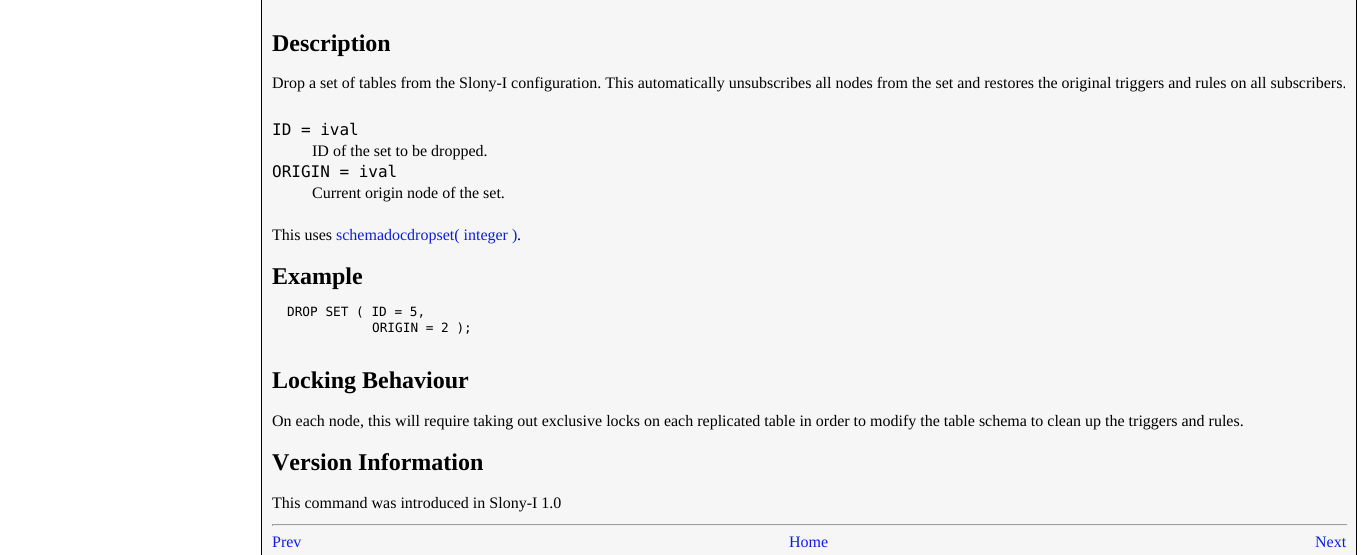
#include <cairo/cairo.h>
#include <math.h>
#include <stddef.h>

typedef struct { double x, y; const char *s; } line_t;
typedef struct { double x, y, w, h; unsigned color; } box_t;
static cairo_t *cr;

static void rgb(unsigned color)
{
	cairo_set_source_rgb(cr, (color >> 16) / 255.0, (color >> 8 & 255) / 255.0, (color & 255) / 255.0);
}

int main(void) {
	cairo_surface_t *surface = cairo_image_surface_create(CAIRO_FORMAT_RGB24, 1369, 555);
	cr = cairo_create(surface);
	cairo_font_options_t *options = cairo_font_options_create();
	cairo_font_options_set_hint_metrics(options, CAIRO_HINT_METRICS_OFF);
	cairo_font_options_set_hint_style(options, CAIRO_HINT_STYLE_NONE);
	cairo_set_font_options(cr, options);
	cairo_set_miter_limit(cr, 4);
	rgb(0xffffff);
	cairo_paint(cr);
	{
		static const box_t items[] = {
			{262, 0, 1094, 555, 0xf6f6f6},
			{1356, 0, 1, 555, 0x000000},
			{261, 0, 1, 555, 0x000000},
			{272, 524, 1076, 1, 0x9f9f9f},
			{1347, 524, 1, 2, 0xeeeeee},
			{272, 525, 1076, 1, 0xeeeeee},
			{272, 524, 1, 2, 0x9f9f9f},
		};
		for (size_t i = 0; i < sizeof items / sizeof *items; i++) {
			rgb(items[i].color);
			cairo_rectangle(cr, items[i].x, items[i].y, items[i].w, items[i].h);
			cairo_fill(cr);
		}
	}
	cairo_select_font_face(cr, "Liberation Serif", CAIRO_FONT_SLANT_NORMAL, CAIRO_FONT_WEIGHT_BOLD);
	cairo_set_font_size(cr, 24);
	rgb(0x000000);
	cairo_move_to(cr, 272, 51);
	cairo_show_text(cr, "Description");
	cairo_select_font_face(cr, "Liberation Serif", CAIRO_FONT_SLANT_NORMAL, CAIRO_FONT_WEIGHT_NORMAL);
	cairo_set_font_size(cr, 16);
	cairo_move_to(cr, 272, 88);
	cairo_show_text(cr, "Drop a set of tables from the Slony-I configuration. This automatically unsubscribes all nodes from the set and restores the original triggers and rules on all subscribers.");
	cairo_select_font_face(cr, "DejaVu Sans Mono", CAIRO_FONT_SLANT_NORMAL, CAIRO_FONT_WEIGHT_NORMAL);
	cairo_move_to(cr, 272, 135);
	cairo_show_text(cr, "ID = ival");
	cairo_select_font_face(cr, "Liberation Serif", CAIRO_FONT_SLANT_NORMAL, CAIRO_FONT_WEIGHT_NORMAL);
	cairo_move_to(cr, 312, 156);
	cairo_show_text(cr, "ID of the set to be dropped.");
	cairo_select_font_face(cr, "DejaVu Sans Mono", CAIRO_FONT_SLANT_NORMAL, CAIRO_FONT_WEIGHT_NORMAL);
	cairo_move_to(cr, 272, 177);
	cairo_show_text(cr, "ORIGIN = ival");
	cairo_select_font_face(cr, "Liberation Serif", CAIRO_FONT_SLANT_NORMAL, CAIRO_FONT_WEIGHT_NORMAL);
	cairo_move_to(cr, 312, 198);
	cairo_show_text(cr, "Current origin node of the set.");
	cairo_move_to(cr, 272, 240);
	cairo_show_text(cr, "This uses");
	rgb(0x0d1ddf);
	cairo_move_to(cr, 336, 240);
	cairo_show_text(cr, "schemadocdropset( integer )");
	rgb(0x000000);
	cairo_move_to(cr, 517, 240);
	cairo_show_text(cr, ".");
	cairo_select_font_face(cr, "Liberation Serif", CAIRO_FONT_SLANT_NORMAL, CAIRO_FONT_WEIGHT_BOLD);
	cairo_set_font_size(cr, 24);
	cairo_move_to(cr, 272, 284);
	cairo_show_text(cr, "Example");
	cairo_select_font_face(cr, "DejaVu Sans Mono", CAIRO_FONT_SLANT_NORMAL, CAIRO_FONT_WEIGHT_NORMAL);
	cairo_set_font_size(cr, 12.75);
	cairo_move_to(cr, 287, 316);
	cairo_show_text(cr, "DROP SET ( ID = 5,");
	cairo_move_to(cr, 372, 332);
	cairo_show_text(cr, "ORIGIN = 2 );");
	cairo_select_font_face(cr, "Liberation Serif", CAIRO_FONT_SLANT_NORMAL, CAIRO_FONT_WEIGHT_BOLD);
	cairo_set_font_size(cr, 24);
	cairo_move_to(cr, 272, 388);
	cairo_show_text(cr, "Locking Behaviour");
	cairo_select_font_face(cr, "Liberation Serif", CAIRO_FONT_SLANT_NORMAL, CAIRO_FONT_WEIGHT_NORMAL);
	cairo_set_font_size(cr, 16);
	cairo_move_to(cr, 272, 426);
	cairo_show_text(cr, "On each node, this will require taking out exclusive locks on each replicated table in order to modify the table schema to clean up the triggers and rules.");
	cairo_select_font_face(cr, "Liberation Serif", CAIRO_FONT_SLANT_NORMAL, CAIRO_FONT_WEIGHT_BOLD);
	cairo_set_font_size(cr, 24);
	cairo_move_to(cr, 272, 470);
	cairo_show_text(cr, "Version Information");
	cairo_select_font_face(cr, "Liberation Serif", CAIRO_FONT_SLANT_NORMAL, CAIRO_FONT_WEIGHT_NORMAL);
	cairo_set_font_size(cr, 16);
	cairo_move_to(cr, 272, 508);
	cairo_show_text(cr, "This command was introduced in Slony-I 1.0");
	rgb(0x0d1ddf);
	{
		static const line_t items[] = {
			{272, 547, "Prev"},
			{789, 547, "Home"},
			{1315, 547, "Next"},
		};
		for (size_t i = 0; i < sizeof items / sizeof *items; i++) {
			cairo_move_to(cr, items[i].x, items[i].y);
			cairo_show_text(cr, items[i].s);
		}
	}
	cairo_surface_write_to_png(surface, "page.png");
	cairo_font_options_destroy(options);
	cairo_destroy(cr);
	cairo_surface_destroy(surface);
	return 0;
}
